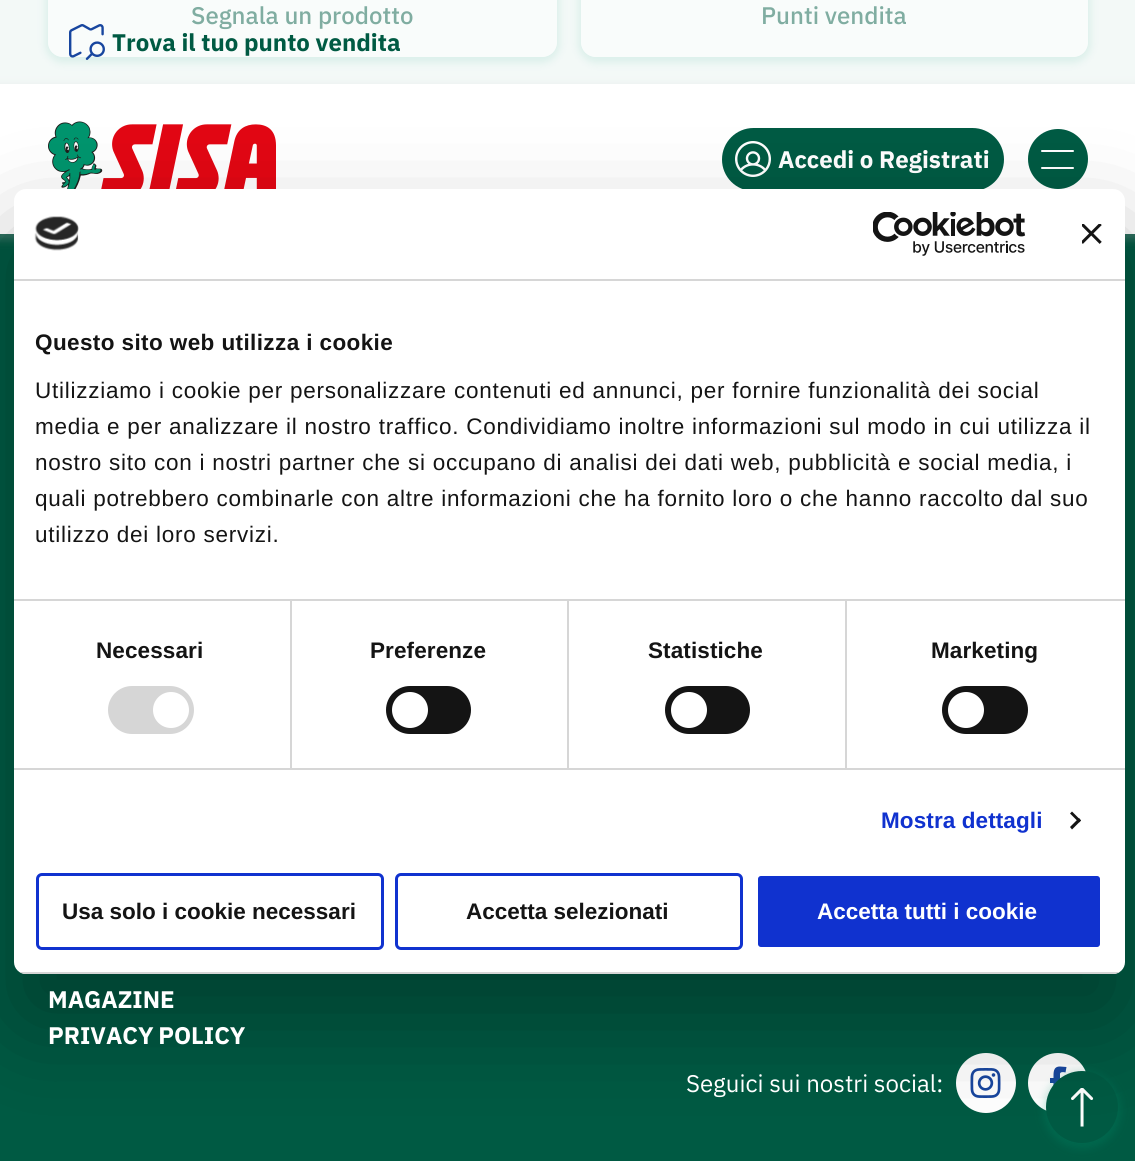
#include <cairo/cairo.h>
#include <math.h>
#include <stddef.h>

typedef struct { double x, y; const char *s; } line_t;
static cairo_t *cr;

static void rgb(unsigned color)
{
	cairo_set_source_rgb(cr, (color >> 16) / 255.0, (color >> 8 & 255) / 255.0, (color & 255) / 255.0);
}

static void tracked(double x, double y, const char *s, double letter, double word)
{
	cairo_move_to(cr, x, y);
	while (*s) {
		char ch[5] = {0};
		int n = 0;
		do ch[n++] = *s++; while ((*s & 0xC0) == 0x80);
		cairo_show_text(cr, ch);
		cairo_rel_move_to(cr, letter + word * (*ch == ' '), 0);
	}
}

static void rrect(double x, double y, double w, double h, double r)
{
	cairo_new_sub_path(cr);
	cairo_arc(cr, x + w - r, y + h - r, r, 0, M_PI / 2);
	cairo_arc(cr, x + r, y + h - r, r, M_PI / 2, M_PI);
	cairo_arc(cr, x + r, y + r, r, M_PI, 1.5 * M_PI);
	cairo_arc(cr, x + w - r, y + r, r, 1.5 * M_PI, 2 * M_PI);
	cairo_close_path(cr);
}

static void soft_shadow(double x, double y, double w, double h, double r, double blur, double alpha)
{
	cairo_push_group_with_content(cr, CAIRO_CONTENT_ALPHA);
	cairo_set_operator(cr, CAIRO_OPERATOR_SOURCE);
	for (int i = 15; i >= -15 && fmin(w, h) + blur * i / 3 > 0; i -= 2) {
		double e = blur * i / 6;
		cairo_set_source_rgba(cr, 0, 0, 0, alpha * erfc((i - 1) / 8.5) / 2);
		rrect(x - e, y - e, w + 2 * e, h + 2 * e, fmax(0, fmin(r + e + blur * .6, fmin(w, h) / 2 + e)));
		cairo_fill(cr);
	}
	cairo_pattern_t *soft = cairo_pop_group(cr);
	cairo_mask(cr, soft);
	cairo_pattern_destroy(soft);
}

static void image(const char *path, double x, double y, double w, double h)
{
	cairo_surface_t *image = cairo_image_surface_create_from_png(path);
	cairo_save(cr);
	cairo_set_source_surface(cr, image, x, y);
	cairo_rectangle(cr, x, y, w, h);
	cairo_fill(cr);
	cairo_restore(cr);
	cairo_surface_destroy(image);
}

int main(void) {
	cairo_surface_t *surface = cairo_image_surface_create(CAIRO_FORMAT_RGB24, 1135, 1161);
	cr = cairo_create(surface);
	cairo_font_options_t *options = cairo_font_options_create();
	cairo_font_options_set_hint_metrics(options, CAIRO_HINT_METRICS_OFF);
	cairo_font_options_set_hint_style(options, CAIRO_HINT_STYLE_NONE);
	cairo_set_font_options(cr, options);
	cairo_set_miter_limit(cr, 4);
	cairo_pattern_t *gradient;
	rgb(0xffffff);
	cairo_paint(cr);
	gradient = cairo_pattern_create_linear(568, -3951, 568, 1161);
	cairo_pattern_add_color_stop_rgba(gradient, 0, 0.953, 0.976, 0.969, 1);
	cairo_pattern_add_color_stop_rgba(gradient, 0.09, 0.906, 0.949, 0.937, 1);
	cairo_pattern_add_color_stop_rgba(gradient, 1, 0.906, 0.949, 0.937, 1);
	cairo_set_source(cr, gradient);
	cairo_pattern_destroy(gradient);
	cairo_rectangle(cr, 0, 0, 1135, 84);
	cairo_fill(cr);
	cairo_save(cr);
	cairo_set_fill_rule(cr, CAIRO_FILL_RULE_EVEN_ODD);
	cairo_new_path(cr);
	cairo_move_to(cr, 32, 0);
	cairo_line_to(cr, 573, 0);
	cairo_line_to(cr, 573, 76);
	cairo_line_to(cr, 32, 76);
	cairo_close_path(cr);
	cairo_move_to(cr, 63, -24);
	cairo_line_to(cr, 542, -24);
	cairo_curve_to(cr, 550.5, -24, 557, -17.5, 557, -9);
	cairo_line_to(cr, 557, 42);
	cairo_curve_to(cr, 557, 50.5, 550.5, 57, 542, 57);
	cairo_line_to(cr, 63, 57);
	cairo_curve_to(cr, 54.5, 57, 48, 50.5, 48, 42);
	cairo_line_to(cr, 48, -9);
	cairo_curve_to(cr, 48, -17.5, 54.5, -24, 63, -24);
	cairo_close_path(cr);
	cairo_clip(cr);
	rgb(0x009973);
	soft_shadow(45, -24, 515, 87, 18, 4, 0.2);
	cairo_restore(cr);
	cairo_set_source_rgba(cr, 1, 1, 1, 0.5);
	rrect(48, -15, 509, 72, 15);
	cairo_fill(cr);
	cairo_save(cr);
	cairo_set_fill_rule(cr, CAIRO_FILL_RULE_EVEN_ODD);
	cairo_new_path(cr);
	cairo_move_to(cr, 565, 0);
	cairo_line_to(cr, 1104, 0);
	cairo_line_to(cr, 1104, 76);
	cairo_line_to(cr, 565, 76);
	cairo_close_path(cr);
	cairo_move_to(cr, 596, -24);
	cairo_line_to(cr, 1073, -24);
	cairo_curve_to(cr, 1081.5, -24, 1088, -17.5, 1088, -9);
	cairo_line_to(cr, 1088, 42);
	cairo_curve_to(cr, 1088, 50.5, 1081.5, 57, 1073, 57);
	cairo_line_to(cr, 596, 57);
	cairo_curve_to(cr, 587.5, 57, 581, 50.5, 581, 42);
	cairo_line_to(cr, 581, -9);
	cairo_curve_to(cr, 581, -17.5, 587.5, -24, 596, -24);
	cairo_close_path(cr);
	cairo_clip(cr);
	rgb(0x009973);
	soft_shadow(578, -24, 513, 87, 18, 4, 0.2);
	cairo_restore(cr);
	rrect(581, -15, 507, 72, 15);
	cairo_fill(cr);
	rgb(0x005a43);
	cairo_rectangle(cr, 0, 234, 1135, 927);
	cairo_fill(cr);
	rgb(0xababab);
	soft_shadow(-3, 84, 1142, 156, 0, 4, 0.3);
	rgb(0xffffff);
	cairo_rectangle(cr, 0, 84, 1135, 150);
	cairo_fill(cr);
	image("img/2.png", 48, 121, 228, 68);
	rgb(0x005a43);
	rrect(722, 128, 282, 63, 31.5);
	cairo_fill(cr);
	image("img/3.png", 735, 141, 36, 36);
	cairo_arc(cr, 1058, 159, 30, 0, 2 * M_PI);
	cairo_fill(cr);
	rgb(0xffffff);
	rrect(1041, 150, 33, 2, 1);
	cairo_fill(cr);
	rrect(1041, 167, 33, 2, 1);
	cairo_fill(cr);
	image("img/7.png", 956, 1053, 60, 60);
	cairo_arc(cr, 1058, 1083, 30, 0, 2 * M_PI);
	cairo_fill(cr);
	rgb(0x18469f);
	cairo_new_path(cr);
	cairo_move_to(cr, 1060, 1074);
	cairo_curve_to(cr, 1060, 1071.5, 1064, 1072, 1065.5, 1072.5);
	cairo_line_to(cr, 1066.5, 1067);
	cairo_line_to(cr, 1060, 1066.5);
	cairo_curve_to(cr, 1053, 1066.5, 1053.5, 1072.5, 1053.5, 1078);
	cairo_line_to(cr, 1050, 1078);
	cairo_line_to(cr, 1050, 1083);
	cairo_line_to(cr, 1053.5, 1083);
	cairo_line_to(cr, 1053.5, 1101);
	cairo_line_to(cr, 1060, 1101);
	cairo_line_to(cr, 1060, 1083);
	cairo_line_to(cr, 1065.5, 1083);
	cairo_line_to(cr, 1066, 1078);
	cairo_line_to(cr, 1060, 1078);
	cairo_close_path(cr);
	cairo_fill(cr);
	rgb(0x009973);
	soft_shadow(1043, 1071, 78, 78, 39, 4, 0.2);
	rgb(0x005a43);
	cairo_arc(cr, 1082, 1107, 36, 0, 2 * M_PI);
	cairo_fill(cr);
	image("img/8.png", 1071, 1088, 23, 39);
	cairo_select_font_face(cr, "IBM Plex Sans Medium", CAIRO_FONT_SLANT_NORMAL, CAIRO_FONT_WEIGHT_NORMAL);
	cairo_set_font_size(cr, 24);
	cairo_move_to(cr, 191, 24);
	cairo_show_text(cr, "Segnala un prodotto");
	cairo_move_to(cr, 761, 24);
	cairo_show_text(cr, "Punti vendita");
	cairo_set_source_rgba(cr, 1, 1, 1, 0.5);
	cairo_rectangle(cr, 0, 0, 1135, 84);
	cairo_fill(cr);
	image("img/1.png", 69, 24, 36, 36);
	cairo_select_font_face(cr, "IBM Plex Sans", CAIRO_FONT_SLANT_NORMAL, CAIRO_FONT_WEIGHT_BOLD);
	rgb(0x005a43);
	cairo_move_to(cr, 112, 51);
	cairo_show_text(cr, "Trova il tuo punto vendita");
	rgb(0xffffff);
	cairo_move_to(cr, 778, 168);
	cairo_show_text(cr, "Accedi o Registrati");
	rgb(0x000000);
	soft_shadow(14, 237, 1111, 785, 12, 51, 0.3);
	rgb(0xffffff);
	rrect(14, 189, 1111, 785, 12);
	cairo_fill(cr);
	rgb(0xd6d6d6);
	cairo_rectangle(cr, 14, 279, 1111, 2);
	cairo_fill(cr);
	image("img/4.png", 34, 216, 45, 35);
	image("img/5.png", 873, 212, 153, 44);
	image("img/6.png", 1082, 224, 20, 20);
	cairo_select_font_face(cr, "Liberation Sans", CAIRO_FONT_SLANT_NORMAL, CAIRO_FONT_WEIGHT_BOLD);
	cairo_set_font_size(cr, 22.5);
	rgb(0x141414);
	tracked(35, 350, "Questo sito web utilizza i cookie", 0.4, 0);
	cairo_select_font_face(cr, "Liberation Sans", CAIRO_FONT_SLANT_NORMAL, CAIRO_FONT_WEIGHT_NORMAL);
	{
		static const line_t items[] = {
			{35, 398, "Utilizziamo i cookie per personalizzare contenuti ed annunci, per fornire funzionalità dei social"},
			{35, 434, "media e per analizzare il nostro traffico. Condividiamo inoltre informazioni sul modo in cui utilizza il"},
			{35, 470, "nostro sito con i nostri partner che si occupano di analisi dei dati web, pubblicità e social media, i"},
			{35, 506, "quali potrebbero combinarle con altre informazioni che ha fornito loro o che hanno raccolto dal suo"},
			{35, 542, "utilizzo dei loro servizi."},
		};
		for (size_t i = 0; i < sizeof items / sizeof *items; i++) {
			tracked(items[i].x, items[i].y, items[i].s, 0.75, 0);
		}
	}
	rgb(0xd6d6d6);
	cairo_rectangle(cr, 14, 768, 1111, 2);
	cairo_fill(cr);
	cairo_rectangle(cr, 290, 600, 2, 168);
	cairo_fill(cr);
	cairo_select_font_face(cr, "Liberation Sans", CAIRO_FONT_SLANT_NORMAL, CAIRO_FONT_WEIGHT_BOLD);
	rgb(0x141414);
	tracked(96, 658, "Necessari", 0.1, 0);
	rgb(0xd6d6d6);
	rrect(108, 686, 86, 48, 24);
	cairo_fill(cr);
	rgb(0xffffff);
	cairo_arc(cr, 171, 710, 18, 0, 2 * M_PI);
	cairo_fill(cr);
	rgb(0xd6d6d6);
	cairo_rectangle(cr, 567, 600, 2, 168);
	cairo_fill(cr);
	rgb(0x141414);
	tracked(370, 658, "Preferenze", 0.1, 0);
	rrect(386, 686, 85, 48, 24);
	cairo_fill(cr);
	rgb(0xffffff);
	cairo_arc(cr, 410, 710, 18, 0, 2 * M_PI);
	cairo_fill(cr);
	rgb(0xd6d6d6);
	cairo_rectangle(cr, 845, 600, 2, 168);
	cairo_fill(cr);
	cairo_rectangle(cr, 14, 599, 1111, 2);
	cairo_fill(cr);
	rgb(0x141414);
	tracked(648, 658, "Statistiche", 0.1, 0);
	rrect(665, 686, 85, 48, 24);
	cairo_fill(cr);
	rgb(0xffffff);
	cairo_arc(cr, 689, 710, 18, 0, 2 * M_PI);
	cairo_fill(cr);
	rgb(0x141414);
	tracked(931, 658, "Marketing", 0.1, 0);
	rrect(942, 686, 86, 48, 24);
	cairo_fill(cr);
	rgb(0xffffff);
	cairo_arc(cr, 966, 710, 18, 0, 2 * M_PI);
	cairo_fill(cr);
	rgb(0x1032cf);
	tracked(881, 828, "Mostra dettagli", 0.1, 0);
	rgb(0x141414);
	cairo_new_path(cr);
	cairo_move_to(cr, 1072, 811.5);
	cairo_line_to(cr, 1081, 820.5);
	cairo_line_to(cr, 1079, 822.5);
	cairo_line_to(cr, 1070, 813.5);
	cairo_close_path(cr);
	cairo_fill(cr);
	cairo_new_path(cr);
	cairo_move_to(cr, 1079, 818);
	cairo_line_to(cr, 1081, 820.5);
	cairo_line_to(cr, 1072, 829.5);
	cairo_line_to(cr, 1070, 827);
	cairo_close_path(cr);
	cairo_fill(cr);
	cairo_save(cr);
	rrect(14, 189, 1111, 785, 12);
	cairo_clip(cr);
	rgb(0xd6d6d6);
	cairo_rectangle(cr, 14, 972, 1111, 2);
	cairo_fill(cr);
	cairo_restore(cr);
	rrect(37.5, 874.5, 345, 74, 4.5);
	rgb(0x1032cf);
	cairo_set_line_width(cr, 3);
	cairo_stroke(cr);
	rgb(0x141414);
	cairo_move_to(cr, 62, 919);
	cairo_show_text(cr, "Usa solo i cookie necessari");
	rrect(396.5, 874.5, 345, 74, 4.5);
	rgb(0x1032cf);
	cairo_stroke(cr);
	rgb(0x141414);
	cairo_move_to(cr, 466, 919);
	cairo_show_text(cr, "Accetta selezionati");
	rgb(0x1032cf);
	rrect(756.5, 874.5, 345, 74, 4.5);
	cairo_fill_preserve(cr);
	rgb(0xffffff);
	cairo_stroke(cr);
	cairo_move_to(cr, 817, 919);
	cairo_show_text(cr, "Accetta tutti i cookie");
	cairo_select_font_face(cr, "IBM Plex Sans", CAIRO_FONT_SLANT_NORMAL, CAIRO_FONT_WEIGHT_BOLD);
	cairo_set_font_size(cr, 24);
	cairo_move_to(cr, 48, 1008);
	cairo_show_text(cr, "MAGAZINE");
	tracked(48, 1044, "PRIVACY POLICY", 0, -1);
	cairo_select_font_face(cr, "IBM Plex Sans", CAIRO_FONT_SLANT_NORMAL, CAIRO_FONT_WEIGHT_NORMAL);
	cairo_move_to(cr, 686, 1092);
	cairo_show_text(cr, "Seguici sui nostri social:");
	cairo_surface_write_to_png(surface, "page.png");
	cairo_font_options_destroy(options);
	cairo_destroy(cr);
	cairo_surface_destroy(surface);
	return 0;
}
